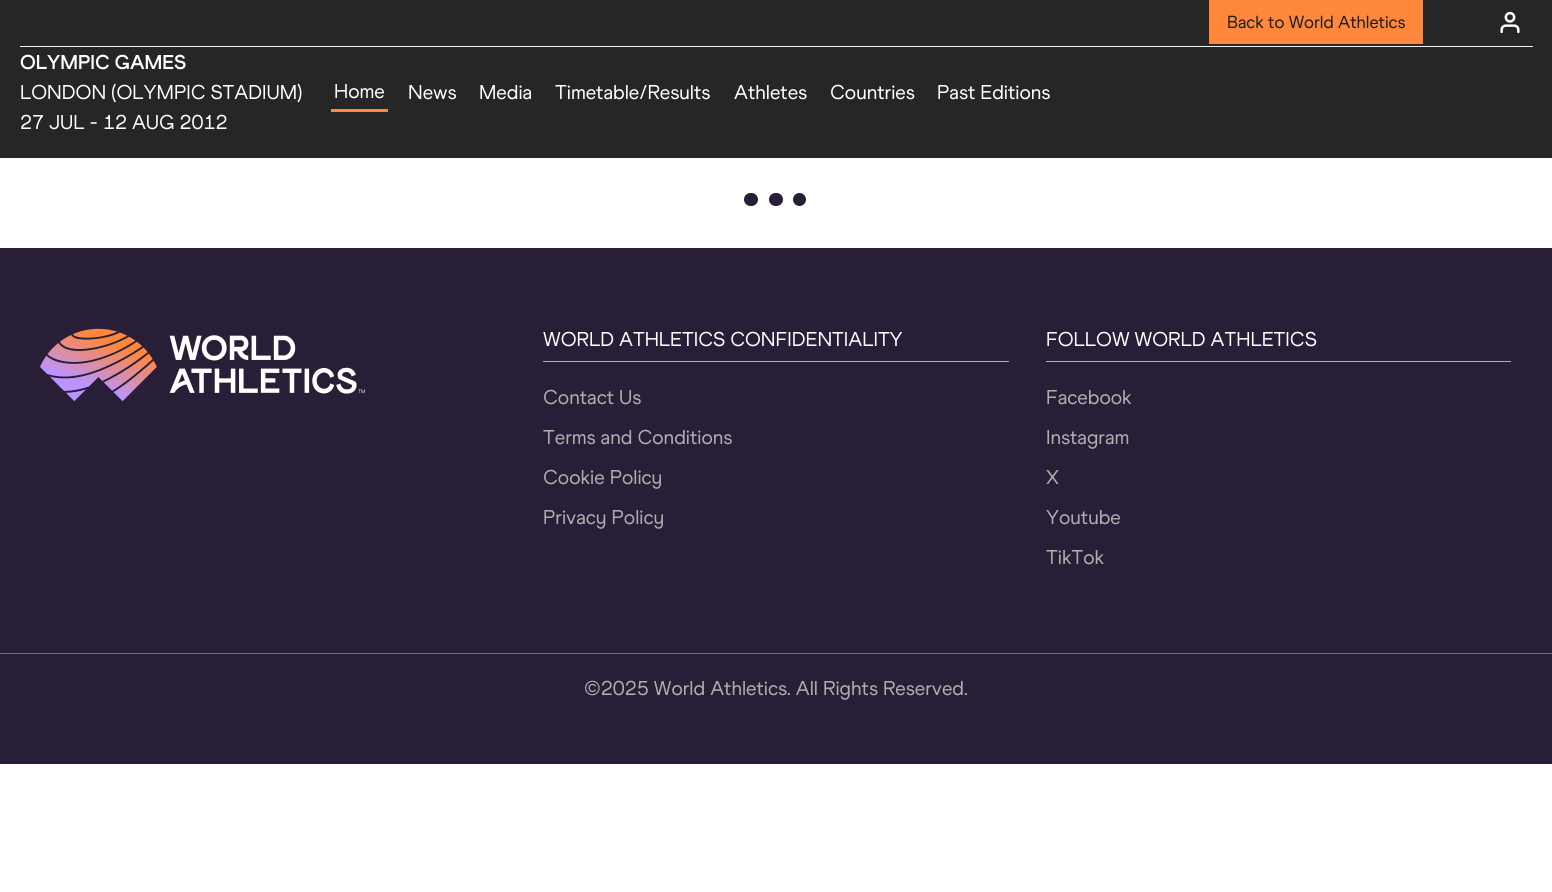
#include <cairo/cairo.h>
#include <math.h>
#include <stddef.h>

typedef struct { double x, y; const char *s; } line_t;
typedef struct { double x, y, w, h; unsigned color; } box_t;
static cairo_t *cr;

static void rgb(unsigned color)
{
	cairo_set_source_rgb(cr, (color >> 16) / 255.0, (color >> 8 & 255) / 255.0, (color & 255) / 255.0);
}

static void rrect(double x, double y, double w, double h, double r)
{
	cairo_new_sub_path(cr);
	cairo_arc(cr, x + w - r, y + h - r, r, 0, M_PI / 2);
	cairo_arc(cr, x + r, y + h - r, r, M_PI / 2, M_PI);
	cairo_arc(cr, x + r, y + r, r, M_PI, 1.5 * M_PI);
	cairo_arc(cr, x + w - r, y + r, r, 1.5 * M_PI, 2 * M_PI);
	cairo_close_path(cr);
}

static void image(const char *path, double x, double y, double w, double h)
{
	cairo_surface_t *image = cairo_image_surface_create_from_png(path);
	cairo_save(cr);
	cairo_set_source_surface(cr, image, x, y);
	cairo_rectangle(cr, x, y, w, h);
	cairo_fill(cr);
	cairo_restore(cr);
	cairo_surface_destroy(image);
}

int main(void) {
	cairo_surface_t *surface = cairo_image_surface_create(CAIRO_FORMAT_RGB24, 1552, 892);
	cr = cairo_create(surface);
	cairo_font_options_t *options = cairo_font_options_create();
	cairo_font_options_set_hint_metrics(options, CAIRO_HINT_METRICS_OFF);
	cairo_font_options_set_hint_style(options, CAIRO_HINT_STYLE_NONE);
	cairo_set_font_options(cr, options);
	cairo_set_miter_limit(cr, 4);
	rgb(0xffffff);
	cairo_paint(cr);
	{
		static const box_t items[] = {
			{0, 0, 1552, 158, 0x262626},
			{20, 46, 1513, 1, 0xf0f0f0},
			{1209, 0, 214, 44, 0xff873c},
		};
		for (size_t i = 0; i < sizeof items / sizeof *items; i++) {
			rgb(items[i].color);
			cairo_rectangle(cr, items[i].x, items[i].y, items[i].w, items[i].h);
			cairo_fill(cr);
		}
	}
	image("img/1.png", 1500, 11, 20, 23);
	cairo_rectangle(cr, 331, 109, 57, 3);
	cairo_fill(cr);
	rgb(0x281e37);
	rrect(744, 193, 14, 13, 6.5);
	cairo_fill(cr);
	rrect(769, 193, 14, 13, 6.5);
	cairo_fill(cr);
	cairo_arc(cr, 799.5, 199.5, 6.5, 0, 2 * M_PI);
	cairo_fill(cr);
	cairo_rectangle(cr, 0, 248, 1552, 516);
	cairo_fill(cr);
	image("img/2.png", 40, 328, 325, 74);
	{
		static const box_t items[] = {
			{543, 361, 466, 1, 0xb2adad},
			{1046, 361, 465, 1, 0xb2adad},
			{0, 653, 1552, 1, 0x707070},
		};
		for (size_t i = 0; i < sizeof items / sizeof *items; i++) {
			rgb(items[i].color);
			cairo_rectangle(cr, items[i].x, items[i].y, items[i].w, items[i].h);
			cairo_fill(cr);
		}
	}
	cairo_select_font_face(cr, "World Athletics", CAIRO_FONT_SLANT_NORMAL, CAIRO_FONT_WEIGHT_NORMAL);
	cairo_set_font_size(cr, 17.5);
	rgb(0x1e1e1e);
	cairo_move_to(cr, 1227, 28);
	cairo_show_text(cr, "Back to World Athletics");
	cairo_select_font_face(cr, "World Athletics", CAIRO_FONT_SLANT_NORMAL, CAIRO_FONT_WEIGHT_BOLD);
	cairo_set_font_size(cr, 20);
	rgb(0xffffff);
	cairo_move_to(cr, 20, 69);
	cairo_show_text(cr, "OLYMPIC GAMES");
	cairo_select_font_face(cr, "World Athletics", CAIRO_FONT_SLANT_NORMAL, CAIRO_FONT_WEIGHT_NORMAL);
	{
		static const line_t items[] = {
			{20, 99, "LONDON (OLYMPIC STADIUM)"},
			{20, 129, "27 JUL - 12 AUG 2012"},
			{334, 98, "Home"},
			{408, 99, "News"},
			{479, 99, "Media"},
			{555, 99, "Timetable/Results"},
			{734, 99, "Athletes"},
			{830, 99, "Countries"},
			{937, 99, "Past Editions"},
			{543, 346, "WORLD ATHLETICS CONFIDENTIALITY"},
		};
		for (size_t i = 0; i < sizeof items / sizeof *items; i++) {
			cairo_move_to(cr, items[i].x, items[i].y);
			cairo_show_text(cr, items[i].s);
		}
	}
	rgb(0xb2adad);
	{
		static const line_t items[] = {
			{543, 404, "Contact Us"},
			{543, 444, "Terms and Conditions"},
			{543, 484, "Cookie Policy"},
			{543, 524, "Privacy Policy"},
		};
		for (size_t i = 0; i < sizeof items / sizeof *items; i++) {
			cairo_move_to(cr, items[i].x, items[i].y);
			cairo_show_text(cr, items[i].s);
		}
	}
	rgb(0xffffff);
	cairo_move_to(cr, 1046, 346);
	cairo_show_text(cr, "FOLLOW WORLD ATHLETICS");
	rgb(0xb2adad);
	{
		static const line_t items[] = {
			{1046, 404, "Facebook"},
			{1046, 444, "Instagram"},
			{1046, 484, "X"},
			{1046, 524, "Youtube"},
			{1046, 564, "TikTok"},
			{584, 695, "©2025 World Athletics. All Rights Reserved."},
		};
		for (size_t i = 0; i < sizeof items / sizeof *items; i++) {
			cairo_move_to(cr, items[i].x, items[i].y);
			cairo_show_text(cr, items[i].s);
		}
	}
	cairo_surface_write_to_png(surface, "page.png");
	cairo_font_options_destroy(options);
	cairo_destroy(cr);
	cairo_surface_destroy(surface);
	return 0;
}
